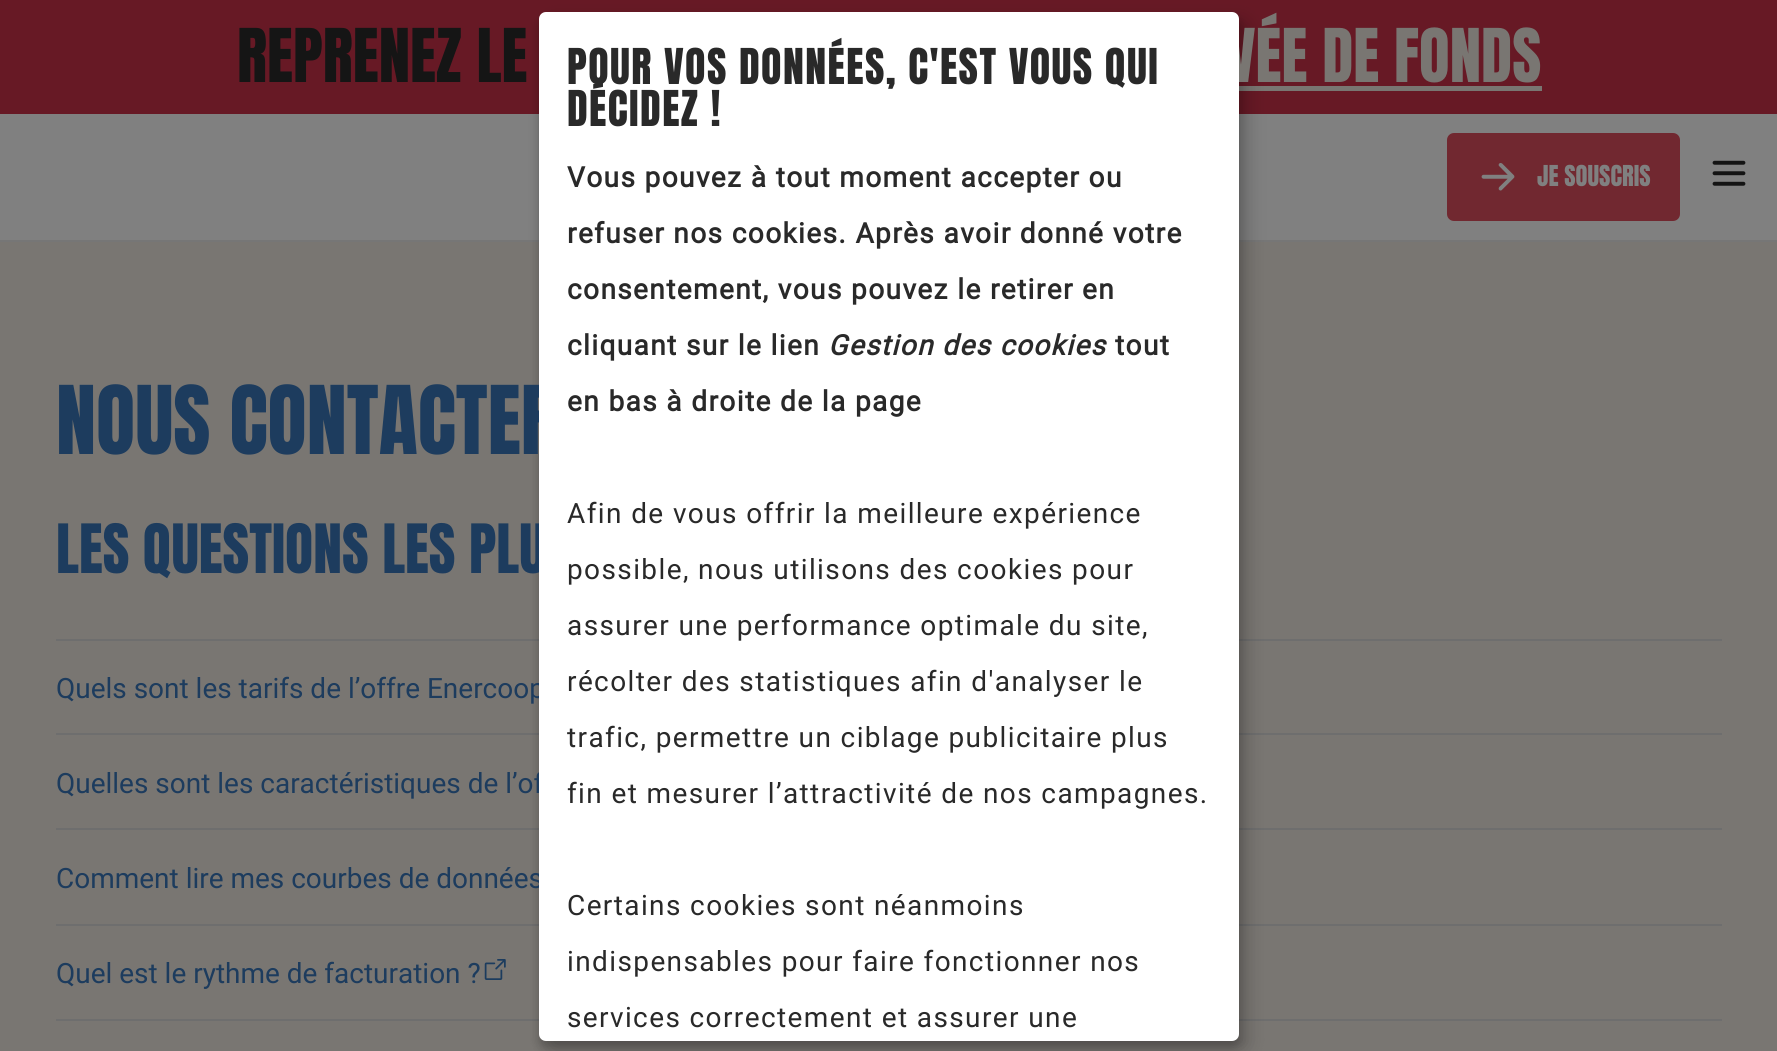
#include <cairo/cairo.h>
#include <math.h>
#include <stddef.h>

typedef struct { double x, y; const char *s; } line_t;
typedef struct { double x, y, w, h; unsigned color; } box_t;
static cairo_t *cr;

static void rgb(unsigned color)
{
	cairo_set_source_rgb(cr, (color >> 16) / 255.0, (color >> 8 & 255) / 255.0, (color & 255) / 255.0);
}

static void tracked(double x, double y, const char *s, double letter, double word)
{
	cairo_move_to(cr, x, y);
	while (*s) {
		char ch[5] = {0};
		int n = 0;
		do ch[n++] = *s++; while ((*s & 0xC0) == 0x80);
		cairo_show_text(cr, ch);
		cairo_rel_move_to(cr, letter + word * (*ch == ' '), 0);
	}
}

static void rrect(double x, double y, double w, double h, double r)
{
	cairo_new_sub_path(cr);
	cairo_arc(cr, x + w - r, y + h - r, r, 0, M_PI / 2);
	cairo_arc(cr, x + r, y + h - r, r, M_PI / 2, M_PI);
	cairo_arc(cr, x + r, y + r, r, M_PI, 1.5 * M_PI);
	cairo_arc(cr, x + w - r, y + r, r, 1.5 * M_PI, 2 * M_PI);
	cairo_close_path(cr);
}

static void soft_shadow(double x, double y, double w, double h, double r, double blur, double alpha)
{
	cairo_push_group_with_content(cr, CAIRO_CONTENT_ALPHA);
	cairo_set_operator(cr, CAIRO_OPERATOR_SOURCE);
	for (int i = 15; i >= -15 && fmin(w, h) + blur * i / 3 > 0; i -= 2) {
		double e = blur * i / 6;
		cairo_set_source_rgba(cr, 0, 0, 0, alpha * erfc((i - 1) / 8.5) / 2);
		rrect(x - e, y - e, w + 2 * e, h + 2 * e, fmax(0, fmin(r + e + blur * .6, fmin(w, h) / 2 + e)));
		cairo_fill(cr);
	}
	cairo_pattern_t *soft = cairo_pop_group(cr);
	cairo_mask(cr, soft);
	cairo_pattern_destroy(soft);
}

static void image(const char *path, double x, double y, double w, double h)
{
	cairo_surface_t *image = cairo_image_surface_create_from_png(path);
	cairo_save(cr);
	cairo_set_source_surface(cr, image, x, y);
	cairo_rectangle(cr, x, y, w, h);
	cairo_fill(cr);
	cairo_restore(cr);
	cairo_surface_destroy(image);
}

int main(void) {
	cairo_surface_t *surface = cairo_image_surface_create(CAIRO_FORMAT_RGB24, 1777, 1051);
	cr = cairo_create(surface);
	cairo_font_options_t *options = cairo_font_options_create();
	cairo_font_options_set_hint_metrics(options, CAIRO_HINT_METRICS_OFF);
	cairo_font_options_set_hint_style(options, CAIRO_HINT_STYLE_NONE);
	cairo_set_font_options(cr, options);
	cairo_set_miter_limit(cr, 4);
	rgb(0x797672);
	cairo_paint(cr);
	{
		static const box_t items[] = {
			{0, 0, 1777, 114, 0x671925},
			{1239, 86, 303, 5, 0x797672},
			{0, 114, 1777, 126, 0x808080},
			{0, 240, 1777, 2, 0x767676},
		};
		for (size_t i = 0; i < sizeof items / sizeof *items; i++) {
			rgb(items[i].color);
			cairo_rectangle(cr, items[i].x, items[i].y, items[i].w, items[i].h);
			cairo_fill(cr);
		}
	}
	rgb(0x712830);
	rrect(1448, 134, 231, 86, 6);
	cairo_fill_preserve(cr);
	cairo_stroke(cr);
	image("img/1.png", 1481, 163, 34, 28);
	image("img/2.png", 1712, 160, 34, 26);
	{
		static const box_t items[] = {
			{56, 639, 1666, 2, 0x6e6e6e},
			{56, 733, 1666, 2, 0x6e6e6e},
			{56, 828, 1666, 2, 0x6e6e6e},
			{56, 924, 1666, 2, 0x6e6e6e},
		};
		for (size_t i = 0; i < sizeof items / sizeof *items; i++) {
			rgb(items[i].color);
			cairo_rectangle(cr, items[i].x, items[i].y, items[i].w, items[i].h);
			cairo_fill(cr);
		}
	}
	image("img/3.png", 484, 959, 22, 21);
	cairo_rectangle(cr, 56, 1019, 1666, 2);
	cairo_fill(cr);
	rgb(0x000000);
	soft_shadow(548, 21, 700, 1029, 7, 9, 0.19);
	soft_shadow(539, 19, 700, 1029, 7, 5, 0.2);
	cairo_select_font_face(cr, "Anton", CAIRO_FONT_SLANT_NORMAL, CAIRO_FONT_WEIGHT_NORMAL);
	cairo_set_font_size(cr, 63);
	rgb(0x151515);
	cairo_move_to(cr, 237, 82);
	cairo_show_text(cr, "REPRENEZ LE");
	rgb(0x797672);
	cairo_move_to(cr, 1226, 82);
	cairo_show_text(cr, "VÉE DE FONDS");
	cairo_set_font_size(cr, 24.5);
	rgb(0x808080);
	cairo_move_to(cr, 1537, 186);
	cairo_show_text(cr, "JE SOUSCRIS");
	cairo_set_font_size(cr, 80.5);
	rgb(0x1d3c5e);
	cairo_move_to(cr, 56, 454);
	cairo_show_text(cr, "NOUS CONTACTER");
	cairo_set_font_size(cr, 57.75);
	cairo_move_to(cr, 56, 573);
	cairo_show_text(cr, "LES QUESTIONS LES PLU");
	cairo_select_font_face(cr, "Roboto", CAIRO_FONT_SLANT_NORMAL, CAIRO_FONT_WEIGHT_NORMAL);
	cairo_set_font_size(cr, 28);
	{
		static const line_t items[] = {
			{56, 698, "Quels sont les tarifs de l’offre Enercoop"},
			{56, 793, "Quelles sont les caractéristiques de l’of"},
			{56, 888, "Comment lire mes courbes de données"},
			{56, 983, "Quel est le rythme de facturation ?"},
		};
		for (size_t i = 0; i < sizeof items / sizeof *items; i++) {
			cairo_move_to(cr, items[i].x, items[i].y);
			cairo_show_text(cr, items[i].s);
		}
	}
	rgb(0xffffff);
	rrect(539, 12, 700, 1029, 7);
	cairo_fill(cr);
	cairo_select_font_face(cr, "Anton", CAIRO_FONT_SLANT_NORMAL, CAIRO_FONT_WEIGHT_NORMAL);
	cairo_set_font_size(cr, 42);
	rgb(0x292929);
	tracked(567, 84, "POUR VOS DONNÉES, C'EST VOUS QUI", 1.4, 0);
	tracked(567, 126, "DÉCIDEZ !", 1.4, 0);
	cairo_select_font_face(cr, "Roboto", CAIRO_FONT_SLANT_NORMAL, CAIRO_FONT_WEIGHT_BOLD);
	cairo_set_font_size(cr, 28);
	{
		static const line_t items[] = {
			{567, 187, "Vous pouvez à tout moment accepter ou"},
			{567, 243, "refuser nos cookies. Après avoir donné votre"},
			{567, 299, "consentement, vous pouvez le retirer en"},
			{567, 355, "cliquant sur le lien"},
		};
		for (size_t i = 0; i < sizeof items / sizeof *items; i++) {
			tracked(items[i].x, items[i].y, items[i].s, 1.4, 0);
		}
	}
	cairo_select_font_face(cr, "Roboto", CAIRO_FONT_SLANT_ITALIC, CAIRO_FONT_WEIGHT_BOLD);
	tracked(828, 355, "Gestion des cookies", 1.4, 0);
	cairo_select_font_face(cr, "Roboto", CAIRO_FONT_SLANT_NORMAL, CAIRO_FONT_WEIGHT_BOLD);
	tracked(1115, 355, "tout", 1.4, 0);
	tracked(567, 411, "en bas à droite de la page", 1.4, 0);
	cairo_select_font_face(cr, "Roboto", CAIRO_FONT_SLANT_NORMAL, CAIRO_FONT_WEIGHT_NORMAL);
	{
		static const line_t items[] = {
			{567, 523, "Afin de vous offrir la meilleure expérience"},
			{567, 579, "possible, nous utilisons des cookies pour"},
			{567, 635, "assurer une performance optimale du site,"},
			{567, 691, "récolter des statistiques afin d'analyser le"},
			{567, 747, "trafic, permettre un ciblage publicitaire plus"},
			{567, 803, "fin et mesurer l’attractivité de nos campagnes."},
			{567, 915, "Certains cookies sont néanmoins"},
			{567, 971, "indispensables pour faire fonctionner nos"},
			{567, 1027, "services correctement et assurer une"},
		};
		for (size_t i = 0; i < sizeof items / sizeof *items; i++) {
			tracked(items[i].x, items[i].y, items[i].s, 1.4, 0);
		}
	}
	cairo_surface_write_to_png(surface, "page.png");
	cairo_font_options_destroy(options);
	cairo_destroy(cr);
	cairo_surface_destroy(surface);
	return 0;
}
